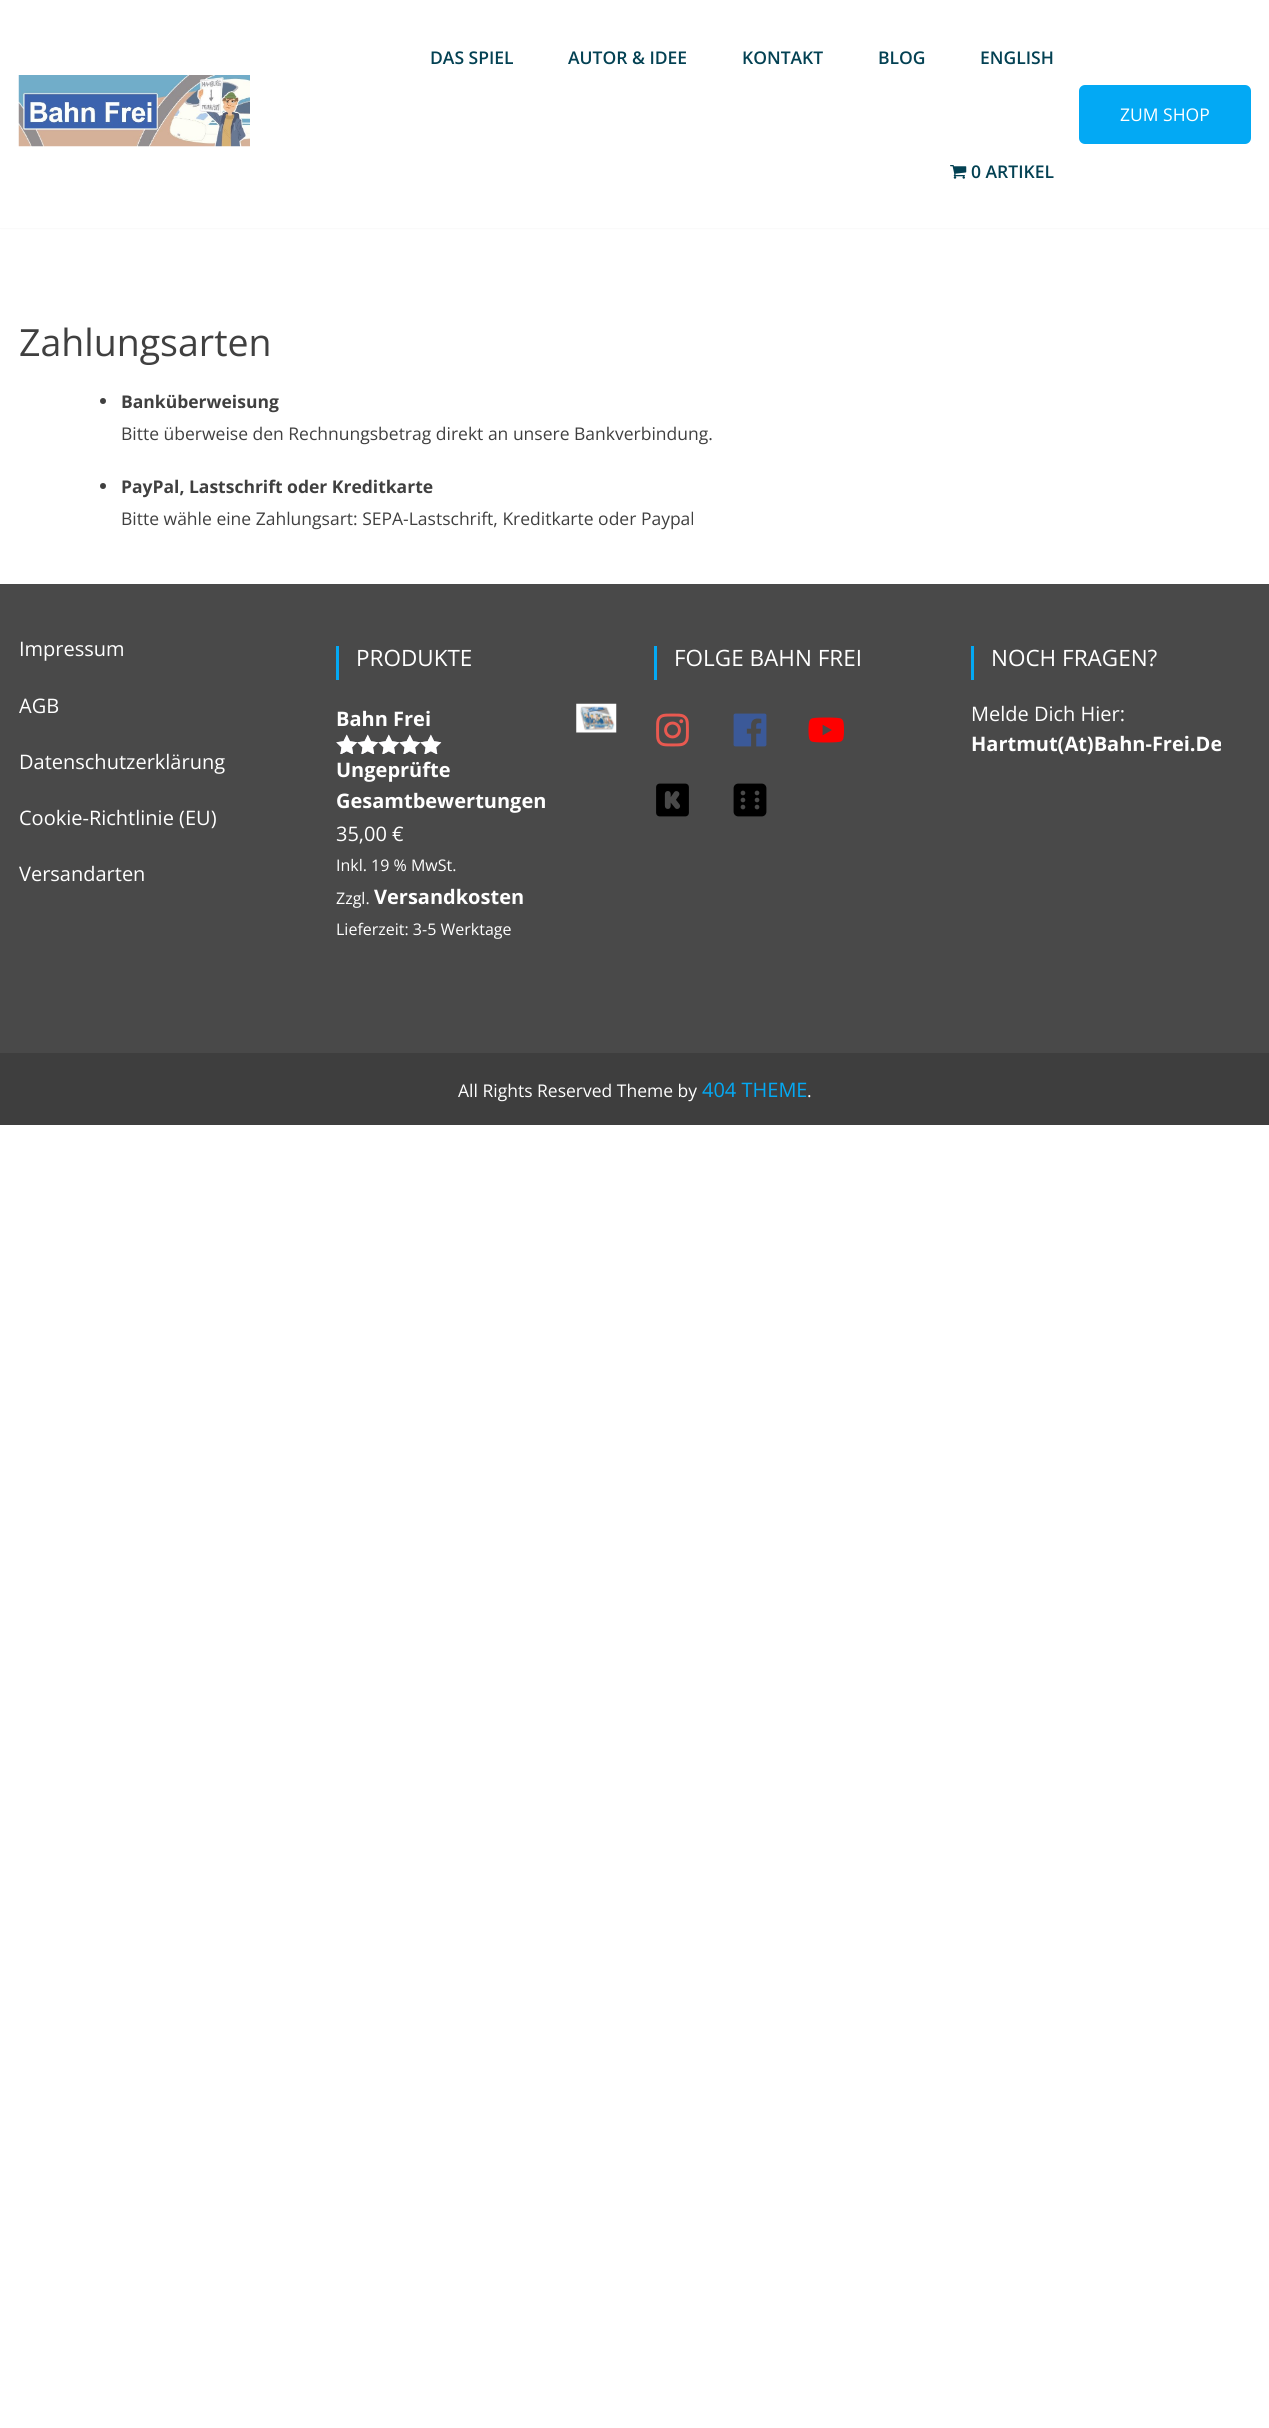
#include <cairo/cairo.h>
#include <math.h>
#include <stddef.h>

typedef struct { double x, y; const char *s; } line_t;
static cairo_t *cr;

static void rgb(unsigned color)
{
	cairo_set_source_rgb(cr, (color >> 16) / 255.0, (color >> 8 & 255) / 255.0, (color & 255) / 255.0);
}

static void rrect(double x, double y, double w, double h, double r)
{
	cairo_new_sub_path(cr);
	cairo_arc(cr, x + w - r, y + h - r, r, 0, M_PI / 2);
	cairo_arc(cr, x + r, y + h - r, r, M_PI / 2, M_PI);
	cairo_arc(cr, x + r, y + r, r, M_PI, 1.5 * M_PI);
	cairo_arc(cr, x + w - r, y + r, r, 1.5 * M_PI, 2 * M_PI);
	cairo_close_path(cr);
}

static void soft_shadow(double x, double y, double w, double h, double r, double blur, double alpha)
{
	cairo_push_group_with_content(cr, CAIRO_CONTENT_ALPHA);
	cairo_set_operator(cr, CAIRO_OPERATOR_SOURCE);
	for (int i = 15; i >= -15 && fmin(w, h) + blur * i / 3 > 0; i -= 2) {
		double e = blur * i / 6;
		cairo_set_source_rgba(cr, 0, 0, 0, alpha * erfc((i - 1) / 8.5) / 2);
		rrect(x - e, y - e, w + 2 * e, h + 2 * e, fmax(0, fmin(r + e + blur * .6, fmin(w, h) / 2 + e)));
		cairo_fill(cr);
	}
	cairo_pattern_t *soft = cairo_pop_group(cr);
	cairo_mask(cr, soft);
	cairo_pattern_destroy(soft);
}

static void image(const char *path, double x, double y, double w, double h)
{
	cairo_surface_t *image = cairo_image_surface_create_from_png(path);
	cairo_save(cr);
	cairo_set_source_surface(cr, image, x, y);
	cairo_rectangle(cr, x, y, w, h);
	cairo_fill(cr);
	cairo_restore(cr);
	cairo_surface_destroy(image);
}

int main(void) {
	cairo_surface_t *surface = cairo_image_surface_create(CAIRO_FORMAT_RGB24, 1269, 2428);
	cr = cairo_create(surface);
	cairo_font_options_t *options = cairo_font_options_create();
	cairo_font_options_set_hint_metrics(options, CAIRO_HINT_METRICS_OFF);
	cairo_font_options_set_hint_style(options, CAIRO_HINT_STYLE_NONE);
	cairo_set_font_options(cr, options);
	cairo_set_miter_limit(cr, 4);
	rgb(0xffffff);
	cairo_paint(cr);
	rgb(0x000000);
	soft_shadow(0, 0, 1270, 228, 0, 1, 0.07);
	rgb(0xffffff);
	cairo_rectangle(cr, 0, 0, 1269, 228);
	cairo_fill(cr);
	image("img/1.png", 18, 75, 232, 72);
	image("img/2.png", 950, 165, 17, 14);
	rgb(0x03a9f4);
	rrect(1079, 85, 172, 59, 6);
	cairo_fill(cr);
	rgb(0x404040);
	cairo_arc(cr, 103, 401, 3, 0, 2 * M_PI);
	cairo_fill(cr);
	cairo_arc(cr, 103, 486, 3, 0, 2 * M_PI);
	cairo_fill(cr);
	rgb(0x494949);
	cairo_rectangle(cr, 0, 584, 1269, 469);
	cairo_fill(cr);
	rgb(0x03a9f4);
	cairo_rectangle(cr, 336, 646, 3, 34);
	cairo_fill(cr);
	image("img/3.png", 576, 703, 41, 30);
	image("img/4.png", 336, 734, 106, 20);
	image("img/5.png", 336, 734, 105, 20);
	cairo_rectangle(cr, 654, 646, 3, 34);
	cairo_fill(cr);
	image("img/6.png", 656, 713, 33, 34);
	image("img/7.png", 733, 713, 34, 34);
	image("img/8.png", 808, 717, 36, 26);
	image("img/9.png", 656, 783, 33, 34);
	image("img/10.png", 733, 783, 34, 34);
	cairo_rectangle(cr, 971, 646, 3, 34);
	cairo_fill(cr);
	rgb(0x3e3e3e);
	cairo_rectangle(cr, 0, 1053, 1269, 72);
	cairo_fill(cr);
	cairo_select_font_face(cr, "Open Sans SemiBold", CAIRO_FONT_SLANT_NORMAL, CAIRO_FONT_WEIGHT_NORMAL);
	cairo_set_font_size(cr, 17.5);
	rgb(0x034153);
	{
		static const line_t items[] = {
			{430, 64, "DAS SPIEL"},
			{568, 64, "AUTOR & IDEE"},
			{742, 64, "KONTAKT"},
			{878, 64, "BLOG"},
			{980, 64, "ENGLISH"},
			{971, 178, "0 ARTIKEL"},
		};
		for (size_t i = 0; i < sizeof items / sizeof *items; i++) {
			cairo_move_to(cr, items[i].x, items[i].y);
			cairo_show_text(cr, items[i].s);
		}
	}
	cairo_select_font_face(cr, "Open Sans", CAIRO_FONT_SLANT_NORMAL, CAIRO_FONT_WEIGHT_NORMAL);
	rgb(0xffffff);
	cairo_move_to(cr, 1120, 121);
	cairo_show_text(cr, "ZUM SHOP");
	cairo_set_font_size(cr, 37.5);
	rgb(0x404040);
	cairo_move_to(cr, 19, 356);
	cairo_show_text(cr, "Zahlungsarten");
	cairo_select_font_face(cr, "Open Sans", CAIRO_FONT_SLANT_NORMAL, CAIRO_FONT_WEIGHT_BOLD);
	cairo_set_font_size(cr, 17.5);
	cairo_move_to(cr, 121, 408);
	cairo_show_text(cr, "Banküberweisung");
	cairo_select_font_face(cr, "Open Sans", CAIRO_FONT_SLANT_NORMAL, CAIRO_FONT_WEIGHT_NORMAL);
	cairo_move_to(cr, 121, 440);
	cairo_show_text(cr, "Bitte überweise den Rechnungsbetrag direkt an unsere Bankverbindung.");
	cairo_select_font_face(cr, "Open Sans", CAIRO_FONT_SLANT_NORMAL, CAIRO_FONT_WEIGHT_BOLD);
	cairo_move_to(cr, 121, 493);
	cairo_show_text(cr, "PayPal, Lastschrift oder Kreditkarte");
	cairo_select_font_face(cr, "Open Sans", CAIRO_FONT_SLANT_NORMAL, CAIRO_FONT_WEIGHT_NORMAL);
	cairo_move_to(cr, 121, 525);
	cairo_show_text(cr, "Bitte wähle eine Zahlungsart: SEPA-Lastschrift, Kreditkarte oder Paypal");
	cairo_set_font_size(cr, 20);
	rgb(0xffffff);
	{
		static const line_t items[] = {
			{19, 656, "Impressum"},
			{19, 713, "AGB"},
			{19, 769, "Datenschutzerklärung"},
			{19, 825, "Cookie-Richtlinie (EU)"},
			{19, 881, "Versandarten"},
		};
		for (size_t i = 0; i < sizeof items / sizeof *items; i++) {
			cairo_move_to(cr, items[i].x, items[i].y);
			cairo_show_text(cr, items[i].s);
		}
	}
	cairo_set_font_size(cr, 22.5);
	cairo_move_to(cr, 356, 666);
	cairo_show_text(cr, "PRODUKTE");
	cairo_select_font_face(cr, "Open Sans", CAIRO_FONT_SLANT_NORMAL, CAIRO_FONT_WEIGHT_BOLD);
	cairo_set_font_size(cr, 20);
	{
		static const line_t items[] = {
			{336, 726, "Bahn Frei"},
			{336, 777, "Ungeprüfte"},
			{336, 808, "Gesamtbewertungen"},
		};
		for (size_t i = 0; i < sizeof items / sizeof *items; i++) {
			cairo_move_to(cr, items[i].x, items[i].y);
			cairo_show_text(cr, items[i].s);
		}
	}
	cairo_select_font_face(cr, "Open Sans", CAIRO_FONT_SLANT_NORMAL, CAIRO_FONT_WEIGHT_NORMAL);
	cairo_move_to(cr, 336, 841);
	cairo_show_text(cr, "35,00 €");
	cairo_set_font_size(cr, 16);
	cairo_move_to(cr, 336, 871);
	cairo_show_text(cr, "Inkl. 19 % MwSt.");
	cairo_move_to(cr, 336, 904);
	cairo_show_text(cr, "Zzgl.");
	cairo_select_font_face(cr, "Open Sans", CAIRO_FONT_SLANT_NORMAL, CAIRO_FONT_WEIGHT_BOLD);
	cairo_set_font_size(cr, 20);
	cairo_move_to(cr, 374, 904);
	cairo_show_text(cr, "Versandkosten");
	cairo_select_font_face(cr, "Open Sans", CAIRO_FONT_SLANT_NORMAL, CAIRO_FONT_WEIGHT_NORMAL);
	cairo_set_font_size(cr, 16);
	cairo_move_to(cr, 336, 935);
	cairo_show_text(cr, "Lieferzeit: 3-5 Werktage");
	cairo_set_font_size(cr, 22.5);
	cairo_move_to(cr, 674, 666);
	cairo_show_text(cr, "FOLGE BAHN FREI");
	cairo_move_to(cr, 991, 666);
	cairo_show_text(cr, "NOCH FRAGEN?");
	cairo_set_font_size(cr, 20);
	cairo_move_to(cr, 971, 721);
	cairo_show_text(cr, "Melde Dich Hier:");
	cairo_select_font_face(cr, "Open Sans", CAIRO_FONT_SLANT_NORMAL, CAIRO_FONT_WEIGHT_BOLD);
	cairo_move_to(cr, 971, 751);
	cairo_show_text(cr, "Hartmut(At)Bahn-Frei.De");
	cairo_select_font_face(cr, "Open Sans", CAIRO_FONT_SLANT_NORMAL, CAIRO_FONT_WEIGHT_NORMAL);
	cairo_set_font_size(cr, 17.5);
	cairo_move_to(cr, 458, 1097);
	cairo_show_text(cr, "All Rights Reserved Theme by");
	cairo_set_font_size(cr, 20);
	rgb(0x03a9f4);
	cairo_move_to(cr, 702, 1097);
	cairo_show_text(cr, "404 THEME");
	cairo_set_font_size(cr, 17.5);
	rgb(0xffffff);
	cairo_move_to(cr, 807, 1097);
	cairo_show_text(cr, ".");
	cairo_surface_write_to_png(surface, "page.png");
	cairo_font_options_destroy(options);
	cairo_destroy(cr);
	cairo_surface_destroy(surface);
	return 0;
}
